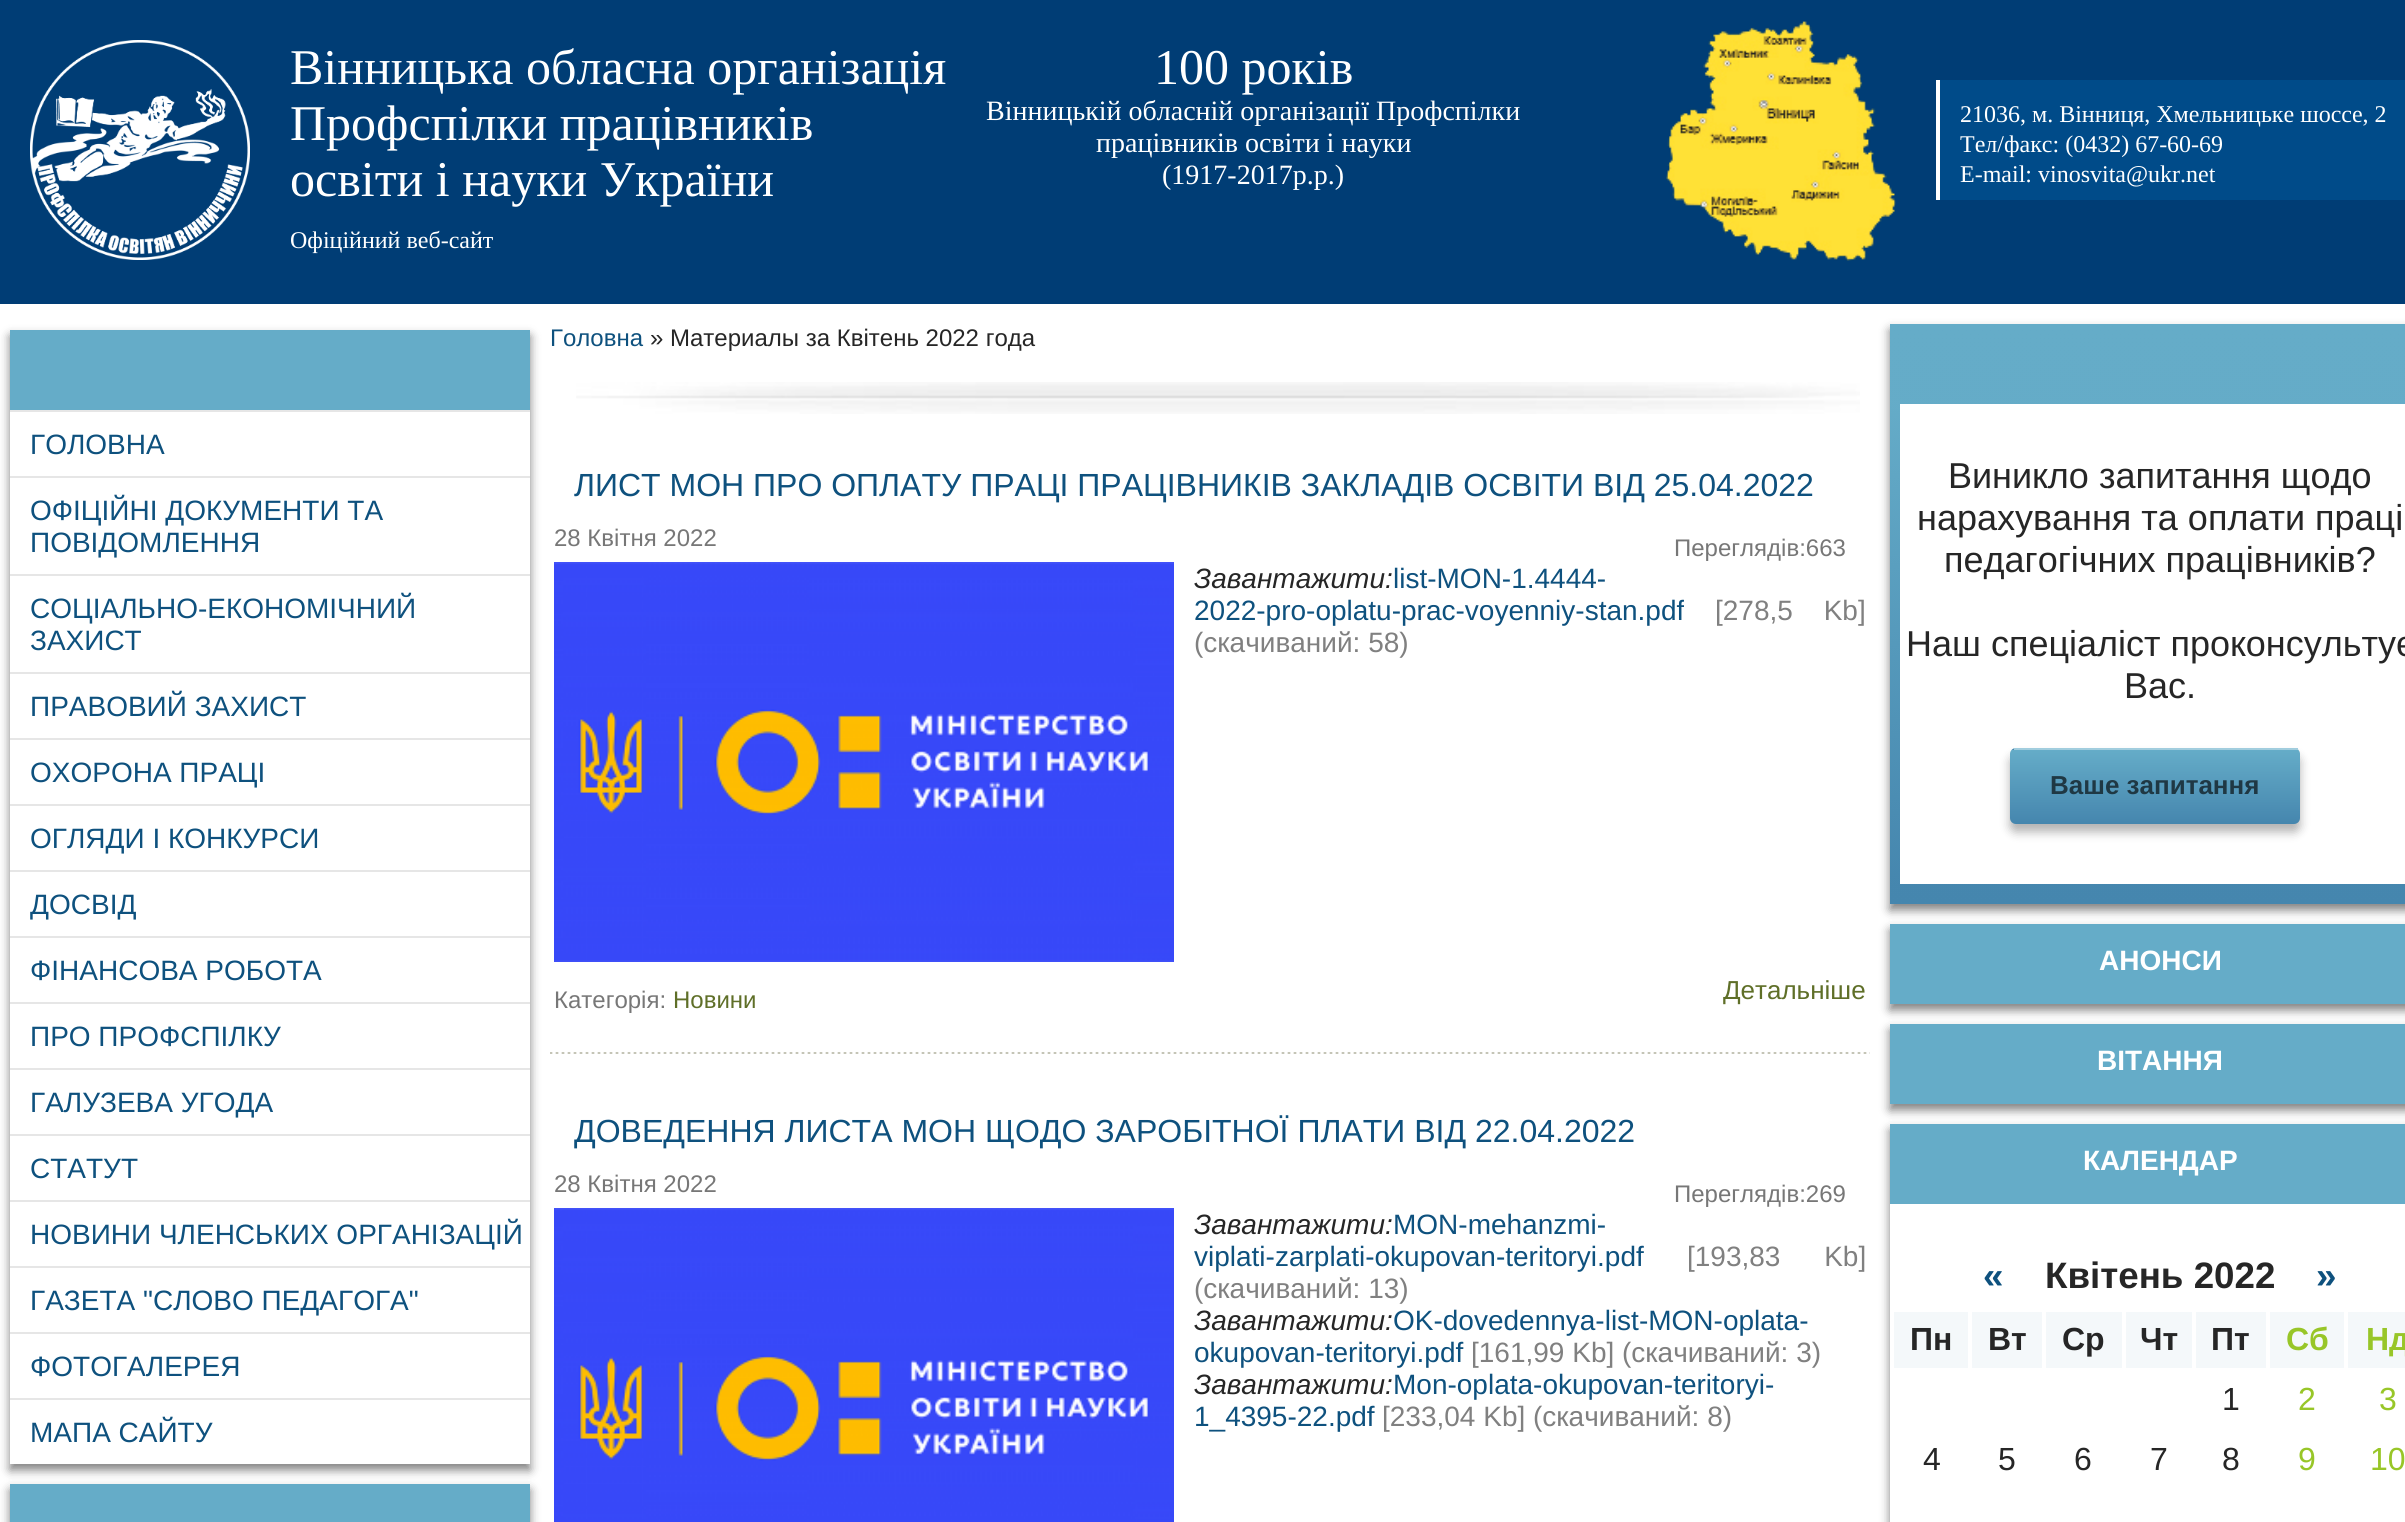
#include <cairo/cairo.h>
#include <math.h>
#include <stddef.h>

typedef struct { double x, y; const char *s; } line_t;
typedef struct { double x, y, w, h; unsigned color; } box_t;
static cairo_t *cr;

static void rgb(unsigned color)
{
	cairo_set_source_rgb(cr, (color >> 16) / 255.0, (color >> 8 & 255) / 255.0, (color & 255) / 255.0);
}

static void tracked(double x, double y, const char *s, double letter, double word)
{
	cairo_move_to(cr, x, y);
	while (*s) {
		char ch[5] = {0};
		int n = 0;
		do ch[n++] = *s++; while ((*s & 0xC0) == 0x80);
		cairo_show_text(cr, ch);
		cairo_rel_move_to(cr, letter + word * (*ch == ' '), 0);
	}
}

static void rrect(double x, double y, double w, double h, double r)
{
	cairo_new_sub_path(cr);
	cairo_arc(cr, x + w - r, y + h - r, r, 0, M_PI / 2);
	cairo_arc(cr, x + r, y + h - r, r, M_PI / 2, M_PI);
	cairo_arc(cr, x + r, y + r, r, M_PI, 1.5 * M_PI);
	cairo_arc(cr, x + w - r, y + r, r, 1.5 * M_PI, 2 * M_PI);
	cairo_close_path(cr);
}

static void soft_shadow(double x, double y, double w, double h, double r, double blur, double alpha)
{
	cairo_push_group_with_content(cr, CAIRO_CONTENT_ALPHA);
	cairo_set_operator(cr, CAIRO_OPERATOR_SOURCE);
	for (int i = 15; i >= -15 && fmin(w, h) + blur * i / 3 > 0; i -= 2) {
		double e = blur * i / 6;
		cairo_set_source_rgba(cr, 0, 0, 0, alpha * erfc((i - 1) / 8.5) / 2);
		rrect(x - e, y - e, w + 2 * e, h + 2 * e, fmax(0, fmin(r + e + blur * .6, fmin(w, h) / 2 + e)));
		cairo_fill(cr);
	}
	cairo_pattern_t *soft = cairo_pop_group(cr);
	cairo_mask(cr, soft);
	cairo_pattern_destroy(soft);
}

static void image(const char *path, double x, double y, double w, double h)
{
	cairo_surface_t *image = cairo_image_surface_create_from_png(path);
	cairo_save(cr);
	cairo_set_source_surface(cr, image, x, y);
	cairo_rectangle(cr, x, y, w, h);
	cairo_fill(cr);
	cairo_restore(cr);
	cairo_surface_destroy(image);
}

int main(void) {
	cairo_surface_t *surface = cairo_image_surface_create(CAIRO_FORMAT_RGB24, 2405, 1522);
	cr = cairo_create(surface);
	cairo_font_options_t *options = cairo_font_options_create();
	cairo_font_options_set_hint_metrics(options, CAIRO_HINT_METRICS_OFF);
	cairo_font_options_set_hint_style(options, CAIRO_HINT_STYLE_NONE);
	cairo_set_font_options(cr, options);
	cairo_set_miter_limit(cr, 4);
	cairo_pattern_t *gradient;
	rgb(0xffffff);
	cairo_paint(cr);
	rgb(0x003d75);
	cairo_rectangle(cr, 0, 0, 2405, 304);
	cairo_fill(cr);
	image("img/1.png", 30, 40, 220, 220);
	image("img/2.png", 1666, 21, 230, 240);
	rgb(0x004b89);
	cairo_rectangle(cr, 1940, 80, 465, 120);
	cairo_fill(cr);
	rgb(0xffffff);
	cairo_rectangle(cr, 1936, 80, 4, 120);
	cairo_fill(cr);
	cairo_save(cr);
	cairo_set_fill_rule(cr, CAIRO_FILL_RULE_EVEN_ODD);
	cairo_new_path(cr);
	cairo_move_to(cr, 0, 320);
	cairo_line_to(cr, 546, 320);
	cairo_line_to(cr, 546, 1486);
	cairo_line_to(cr, 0, 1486);
	cairo_close_path(cr);
	cairo_move_to(cr, 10, 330);
	cairo_line_to(cr, 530, 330);
	cairo_line_to(cr, 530, 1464);
	cairo_line_to(cr, 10, 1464);
	cairo_close_path(cr);
	cairo_clip(cr);
	rgb(0x000000);
	soft_shadow(10, 336, 520, 1134, 0, 5, 0.5);
	cairo_restore(cr);
	{
		static const box_t items[] = {
			{10, 330, 520, 80, 0x65acc8},
			{10, 410, 520, 2, 0xe6e6e6},
			{10, 476, 520, 2, 0xe6e6e6},
			{10, 574, 520, 2, 0xe6e6e6},
			{10, 672, 520, 2, 0xe6e6e6},
			{10, 738, 520, 2, 0xe6e6e6},
			{10, 804, 520, 2, 0xe6e6e6},
			{10, 870, 520, 2, 0xe6e6e6},
			{10, 936, 520, 2, 0xe6e6e6},
			{10, 1002, 520, 2, 0xe6e6e6},
			{10, 1068, 520, 2, 0xe6e6e6},
			{10, 1134, 520, 2, 0xe6e6e6},
			{10, 1200, 520, 2, 0xe6e6e6},
			{10, 1266, 520, 2, 0xe6e6e6},
			{10, 1332, 520, 2, 0xe6e6e6},
			{10, 1398, 520, 2, 0xe6e6e6},
		};
		for (size_t i = 0; i < sizeof items / sizeof *items; i++) {
			rgb(items[i].color);
			cairo_rectangle(cr, items[i].x, items[i].y, items[i].w, items[i].h);
			cairo_fill(cr);
		}
	}
	rgb(0x000000);
	soft_shadow(10, 1490, 520, 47, 0, 5, 0.5);
	rgb(0x65acc8);
	cairo_rectangle(cr, 10, 1484, 520, 38);
	cairo_fill(cr);
	image("img/3.png", 576, 382, 1284, 32);
	image("img/4.png", 554, 562, 620, 400);
	image("img/5.png", 550, 1052, 1320, 2);
	image("img/6.png", 554, 1208, 620, 314);
	cairo_save(cr);
	cairo_set_fill_rule(cr, CAIRO_FILL_RULE_EVEN_ODD);
	cairo_new_path(cr);
	cairo_move_to(cr, 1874, 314);
	cairo_line_to(cr, 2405, 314);
	cairo_line_to(cr, 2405, 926);
	cairo_line_to(cr, 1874, 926);
	cairo_close_path(cr);
	cairo_move_to(cr, 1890, 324);
	cairo_line_to(cr, 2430, 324);
	cairo_line_to(cr, 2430, 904);
	cairo_line_to(cr, 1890, 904);
	cairo_close_path(cr);
	cairo_clip(cr);
	rgb(0x000000);
	soft_shadow(1890, 330, 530, 580, 0, 5, 0.5);
	cairo_restore(cr);
	image("img/7.png", 1890, 324, 515, 580);
	rgb(0x000000);
	soft_shadow(2010, 756, 290, 76, 6, 5, 0.3);
	cairo_save(cr);
	rrect(2010, 748, 290, 76, 6);
	cairo_clip(cr);
	gradient = cairo_pattern_create_linear(2155, 676, 2155, 750);
	cairo_pattern_add_color_stop_rgba(gradient, 0, 0.396, 0.675, 0.784, 1);
	cairo_pattern_add_color_stop_rgba(gradient, 1, 0.271, 0.525, 0.682, 1);
	cairo_set_source(cr, gradient);
	cairo_pattern_destroy(gradient);
	cairo_rectangle(cr, 2010, 748, 290, 2);
	cairo_fill(cr);
	gradient = cairo_pattern_create_linear(2155, 750, 2155, 824);
	cairo_pattern_add_color_stop_rgba(gradient, 0, 0.396, 0.675, 0.784, 1);
	cairo_pattern_add_color_stop_rgba(gradient, 1, 0.271, 0.525, 0.682, 1);
	cairo_set_source(cr, gradient);
	cairo_pattern_destroy(gradient);
	cairo_new_path(cr);
	cairo_move_to(cr, 2010, 750);
	cairo_line_to(cr, 2300, 750);
	cairo_line_to(cr, 2300, 818);
	cairo_curve_to(cr, 2300, 821.5, 2297.5, 824, 2294, 824);
	cairo_line_to(cr, 2016, 824);
	cairo_curve_to(cr, 2012.5, 824, 2010, 821.5, 2010, 818);
	cairo_close_path(cr);
	cairo_fill(cr);
	cairo_restore(cr);
	rgb(0xa1cdde);
	cairo_rectangle(cr, 2014, 748, 284, 2);
	cairo_fill(cr);
	rgb(0x000000);
	soft_shadow(1890, 930, 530, 80, 0, 5, 0.5);
	rgb(0x65acc8);
	cairo_rectangle(cr, 1890, 924, 515, 80);
	cairo_fill(cr);
	rgb(0x000000);
	soft_shadow(1890, 1030, 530, 80, 0, 5, 0.5);
	rgb(0x65acc8);
	cairo_rectangle(cr, 1890, 1024, 515, 80);
	cairo_fill(cr);
	cairo_save(cr);
	cairo_set_fill_rule(cr, CAIRO_FILL_RULE_EVEN_ODD);
	cairo_new_path(cr);
	cairo_move_to(cr, 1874, 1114);
	cairo_line_to(cr, 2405, 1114);
	cairo_line_to(cr, 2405, 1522);
	cairo_line_to(cr, 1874, 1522);
	cairo_close_path(cr);
	cairo_move_to(cr, 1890, 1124);
	cairo_line_to(cr, 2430, 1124);
	cairo_line_to(cr, 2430, 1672);
	cairo_line_to(cr, 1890, 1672);
	cairo_close_path(cr);
	cairo_clip(cr);
	rgb(0x000000);
	soft_shadow(1890, 1130, 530, 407, 0, 5, 0.5);
	cairo_restore(cr);
	{
		static const box_t items[] = {
			{1890, 1124, 515, 80, 0x65acc8},
			{1894, 1312, 74, 56, 0xf4f8fa},
			{1972, 1312, 70, 56, 0xf4f8fa},
			{2046, 1312, 76, 56, 0xf4f8fa},
			{2126, 1312, 66, 56, 0xf4f8fa},
			{2196, 1312, 70, 56, 0xf4f8fa},
			{2270, 1312, 74, 56, 0xf4f8fa},
			{2348, 1312, 57, 56, 0xf4f8fa},
		};
		for (size_t i = 0; i < sizeof items / sizeof *items; i++) {
			rgb(items[i].color);
			cairo_rectangle(cr, items[i].x, items[i].y, items[i].w, items[i].h);
			cairo_fill(cr);
		}
	}
	cairo_select_font_face(cr, "Liberation Serif", CAIRO_FONT_SLANT_NORMAL, CAIRO_FONT_WEIGHT_NORMAL);
	cairo_set_font_size(cr, 50);
	rgb(0xffffff);
	{
		static const line_t items[] = {
			{290, 84, "Вінницька обласна організація"},
			{290, 140, "Профспілки працівників"},
			{290, 196, "освіти і науки України"},
		};
		for (size_t i = 0; i < sizeof items / sizeof *items; i++) {
			cairo_move_to(cr, items[i].x, items[i].y);
			cairo_show_text(cr, items[i].s);
		}
	}
	cairo_set_font_size(cr, 24);
	cairo_move_to(cr, 290, 248);
	cairo_show_text(cr, "Офіційний веб-сайт");
	cairo_set_font_size(cr, 50);
	cairo_move_to(cr, 1154, 84);
	cairo_show_text(cr, "100 років");
	cairo_set_font_size(cr, 28);
	{
		static const line_t items[] = {
			{986, 120, "Вінницькій обласній організації Профспілки"},
			{1096, 152, "працівників освіти і науки"},
			{1162, 184, "(1917-2017р.р.)"},
		};
		for (size_t i = 0; i < sizeof items / sizeof *items; i++) {
			cairo_move_to(cr, items[i].x, items[i].y);
			cairo_show_text(cr, items[i].s);
		}
	}
	cairo_set_font_size(cr, 24);
	{
		static const line_t items[] = {
			{1960, 122, "21036, м. Вінниця, Хмельницьке шоссе, 2"},
			{1960, 152, "Тел/факс: (0432) 67-60-69"},
			{1960, 182, "E-mail: vinosvita@ukr.net"},
		};
		for (size_t i = 0; i < sizeof items / sizeof *items; i++) {
			cairo_move_to(cr, items[i].x, items[i].y);
			cairo_show_text(cr, items[i].s);
		}
	}
	cairo_select_font_face(cr, "Liberation Sans", CAIRO_FONT_SLANT_NORMAL, CAIRO_FONT_WEIGHT_NORMAL);
	cairo_set_font_size(cr, 28);
	rgb(0x0e517e);
	{
		static const line_t items[] = {
			{30, 454, "ГОЛОВНА"},
			{30, 520, "ОФІЦІЙНІ ДОКУМЕНТИ ТА"},
			{30, 552, "ПОВІДОМЛЕННЯ"},
			{30, 618, "СОЦІАЛЬНО-ЕКОНОМІЧНИЙ"},
			{30, 650, "ЗАХИСТ"},
			{30, 716, "ПРАВОВИЙ ЗАХИСТ"},
			{30, 782, "ОХОРОНА ПРАЦІ"},
			{30, 848, "ОГЛЯДИ І КОНКУРСИ"},
			{30, 914, "ДОСВІД"},
			{30, 980, "ФІНАНСОВА РОБОТА"},
			{30, 1046, "ПРО ПРОФСПІЛКУ"},
			{30, 1112, "ГАЛУЗЕВА УГОДА"},
			{30, 1178, "СТАТУТ"},
			{30, 1244, "НОВИНИ ЧЛЕНСЬКИХ ОРГАНІЗАЦІЙ"},
			{30, 1310, "ГАЗЕТА \"СЛОВО ПЕДАГОГА\""},
			{30, 1376, "ФОТОГАЛЕРЕЯ"},
			{30, 1442, "МАПА САЙТУ"},
		};
		for (size_t i = 0; i < sizeof items / sizeof *items; i++) {
			cairo_move_to(cr, items[i].x, items[i].y);
			cairo_show_text(cr, items[i].s);
		}
	}
	cairo_set_font_size(cr, 24);
	cairo_move_to(cr, 550, 346);
	cairo_show_text(cr, "Головна");
	rgb(0x262626);
	cairo_move_to(cr, 650, 346);
	cairo_show_text(cr, "» Материалы за Квітень 2022 года");
	cairo_set_font_size(cr, 32);
	rgb(0x0e517e);
	cairo_move_to(cr, 574, 496);
	cairo_show_text(cr, "ЛИСТ МОН ПРО ОПЛАТУ ПРАЦІ ПРАЦІВНИКІВ ЗАКЛАДІВ ОСВІТИ ВІД 25.04.2022");
	cairo_set_font_size(cr, 24);
	rgb(0x777777);
	cairo_move_to(cr, 554, 546);
	cairo_show_text(cr, "28 Квітня 2022");
	cairo_move_to(cr, 1674, 556);
	cairo_show_text(cr, "Переглядів:663");
	cairo_select_font_face(cr, "Liberation Sans", CAIRO_FONT_SLANT_ITALIC, CAIRO_FONT_WEIGHT_NORMAL);
	cairo_set_font_size(cr, 28);
	rgb(0x262626);
	cairo_move_to(cr, 1194, 588);
	cairo_show_text(cr, "Завантажити:");
	cairo_select_font_face(cr, "Liberation Sans", CAIRO_FONT_SLANT_NORMAL, CAIRO_FONT_WEIGHT_NORMAL);
	rgb(0x0e517e);
	cairo_move_to(cr, 1393, 588);
	cairo_show_text(cr, "list-MON-1.4444-");
	cairo_move_to(cr, 1194, 620);
	cairo_show_text(cr, "2022-pro-oplatu-prac-voyenniy-stan.pdf");
	rgb(0x808080);
	tracked(1715, 620, "[278,5 Kb]", 0, 23);
	cairo_move_to(cr, 1194, 652);
	cairo_show_text(cr, "(cкачиваний: 58)");
	cairo_set_font_size(cr, 24);
	rgb(0x777777);
	cairo_move_to(cr, 554, 1008);
	cairo_show_text(cr, "Категорія:");
	rgb(0x5f6f28);
	cairo_move_to(cr, 673, 1008);
	cairo_show_text(cr, "Новини");
	cairo_set_font_size(cr, 26);
	cairo_move_to(cr, 1723, 999);
	cairo_show_text(cr, "Детальніше");
	cairo_set_font_size(cr, 32);
	rgb(0x0e517e);
	cairo_move_to(cr, 574, 1142);
	cairo_show_text(cr, "ДОВЕДЕННЯ ЛИСТА МОН ЩОДО ЗАРОБІТНОЇ ПЛАТИ ВІД 22.04.2022");
	cairo_set_font_size(cr, 24);
	rgb(0x777777);
	cairo_move_to(cr, 554, 1192);
	cairo_show_text(cr, "28 Квітня 2022");
	cairo_move_to(cr, 1674, 1202);
	cairo_show_text(cr, "Переглядів:269");
	cairo_select_font_face(cr, "Liberation Sans", CAIRO_FONT_SLANT_ITALIC, CAIRO_FONT_WEIGHT_NORMAL);
	cairo_set_font_size(cr, 28);
	rgb(0x262626);
	cairo_move_to(cr, 1194, 1234);
	cairo_show_text(cr, "Завантажити:");
	cairo_select_font_face(cr, "Liberation Sans", CAIRO_FONT_SLANT_NORMAL, CAIRO_FONT_WEIGHT_NORMAL);
	rgb(0x0e517e);
	cairo_move_to(cr, 1393, 1234);
	cairo_show_text(cr, "MON-mehanzmi-");
	cairo_move_to(cr, 1194, 1266);
	cairo_show_text(cr, "viplati-zarplati-okupovan-teritoryi.pdf");
	rgb(0x808080);
	tracked(1687, 1266, "[193,83 Kb]", 0, 36);
	cairo_move_to(cr, 1194, 1298);
	cairo_show_text(cr, "(cкачиваний: 13)");
	cairo_select_font_face(cr, "Liberation Sans", CAIRO_FONT_SLANT_ITALIC, CAIRO_FONT_WEIGHT_NORMAL);
	rgb(0x262626);
	cairo_move_to(cr, 1194, 1330);
	cairo_show_text(cr, "Завантажити:");
	cairo_select_font_face(cr, "Liberation Sans", CAIRO_FONT_SLANT_NORMAL, CAIRO_FONT_WEIGHT_NORMAL);
	rgb(0x0e517e);
	cairo_move_to(cr, 1393, 1330);
	cairo_show_text(cr, "OK-dovedennya-list-MON-oplata-");
	cairo_move_to(cr, 1194, 1362);
	cairo_show_text(cr, "okupovan-teritoryi.pdf");
	rgb(0x808080);
	cairo_move_to(cr, 1471, 1362);
	cairo_show_text(cr, "[161,99 Kb] (cкачиваний: 3)");
	cairo_select_font_face(cr, "Liberation Sans", CAIRO_FONT_SLANT_ITALIC, CAIRO_FONT_WEIGHT_NORMAL);
	rgb(0x262626);
	cairo_move_to(cr, 1194, 1394);
	cairo_show_text(cr, "Завантажити:");
	cairo_select_font_face(cr, "Liberation Sans", CAIRO_FONT_SLANT_NORMAL, CAIRO_FONT_WEIGHT_NORMAL);
	rgb(0x0e517e);
	cairo_move_to(cr, 1393, 1394);
	cairo_show_text(cr, "Mon-oplata-okupovan-teritoryi-");
	cairo_move_to(cr, 1194, 1426);
	cairo_show_text(cr, "1_4395-22.pdf");
	rgb(0x808080);
	cairo_move_to(cr, 1382, 1426);
	cairo_show_text(cr, "[233,04 Kb] (cкачиваний: 8)");
	cairo_set_font_size(cr, 36);
	rgb(0x262626);
	{
		static const line_t items[] = {
			{1948, 488, "Виникло запитання щодо"},
			{1917, 530, "нарахування та оплати праці"},
			{1944, 572, "педагогічних працівників?"},
			{1906, 656, "Наш спеціаліст проконсультує"},
			{2124, 698, "Вас."},
		};
		for (size_t i = 0; i < sizeof items / sizeof *items; i++) {
			cairo_move_to(cr, items[i].x, items[i].y);
			cairo_show_text(cr, items[i].s);
		}
	}
	cairo_select_font_face(cr, "Liberation Sans", CAIRO_FONT_SLANT_NORMAL, CAIRO_FONT_WEIGHT_BOLD);
	cairo_set_font_size(cr, 26);
	rgb(0x1f3844);
	cairo_move_to(cr, 2050, 794);
	cairo_show_text(cr, "Ваше запитання");
	cairo_set_font_size(cr, 28);
	rgb(0xffffff);
	{
		static const line_t items[] = {
			{2099, 970, "АНОНСИ"},
			{2097, 1070, "ВІТАННЯ"},
			{2083, 1170, "КАЛЕНДАР"},
		};
		for (size_t i = 0; i < sizeof items / sizeof *items; i++) {
			cairo_move_to(cr, items[i].x, items[i].y);
			cairo_show_text(cr, items[i].s);
		}
	}
	cairo_set_font_size(cr, 36.75);
	rgb(0x0e517e);
	cairo_move_to(cr, 1983, 1288);
	cairo_show_text(cr, "«");
	rgb(0x262626);
	cairo_move_to(cr, 2045, 1288);
	cairo_show_text(cr, "Квітень 2022");
	rgb(0x0e517e);
	cairo_move_to(cr, 2316, 1288);
	cairo_show_text(cr, "»");
	cairo_set_font_size(cr, 32);
	rgb(0x262626);
	{
		static const line_t items[] = {
			{1910, 1350, "Пн"},
			{1988, 1350, "Вт"},
			{2062, 1350, "Ср"},
			{2140, 1350, "Чт"},
			{2211, 1350, "Пт"},
		};
		for (size_t i = 0; i < sizeof items / sizeof *items; i++) {
			cairo_move_to(cr, items[i].x, items[i].y);
			cairo_show_text(cr, items[i].s);
		}
	}
	rgb(0x98c628);
	cairo_move_to(cr, 2286, 1350);
	cairo_show_text(cr, "Сб");
	cairo_move_to(cr, 2366, 1350);
	cairo_show_text(cr, "Нд");
	cairo_select_font_face(cr, "Liberation Sans", CAIRO_FONT_SLANT_NORMAL, CAIRO_FONT_WEIGHT_NORMAL);
	rgb(0x262626);
	cairo_move_to(cr, 2222, 1410);
	cairo_show_text(cr, "1");
	rgb(0x98c628);
	cairo_move_to(cr, 2298, 1410);
	cairo_show_text(cr, "2");
	cairo_move_to(cr, 2379, 1410);
	cairo_show_text(cr, "3");
	rgb(0x262626);
	{
		static const line_t items[] = {
			{1923, 1470, "4"},
			{1998, 1470, "5"},
			{2074, 1470, "6"},
			{2150, 1470, "7"},
			{2222, 1470, "8"},
		};
		for (size_t i = 0; i < sizeof items / sizeof *items; i++) {
			cairo_move_to(cr, items[i].x, items[i].y);
			cairo_show_text(cr, items[i].s);
		}
	}
	rgb(0x98c628);
	cairo_move_to(cr, 2298, 1470);
	cairo_show_text(cr, "9");
	cairo_move_to(cr, 2370, 1470);
	cairo_show_text(cr, "10");
	cairo_surface_write_to_png(surface, "page.png");
	cairo_font_options_destroy(options);
	cairo_destroy(cr);
	cairo_surface_destroy(surface);
	return 0;
}
